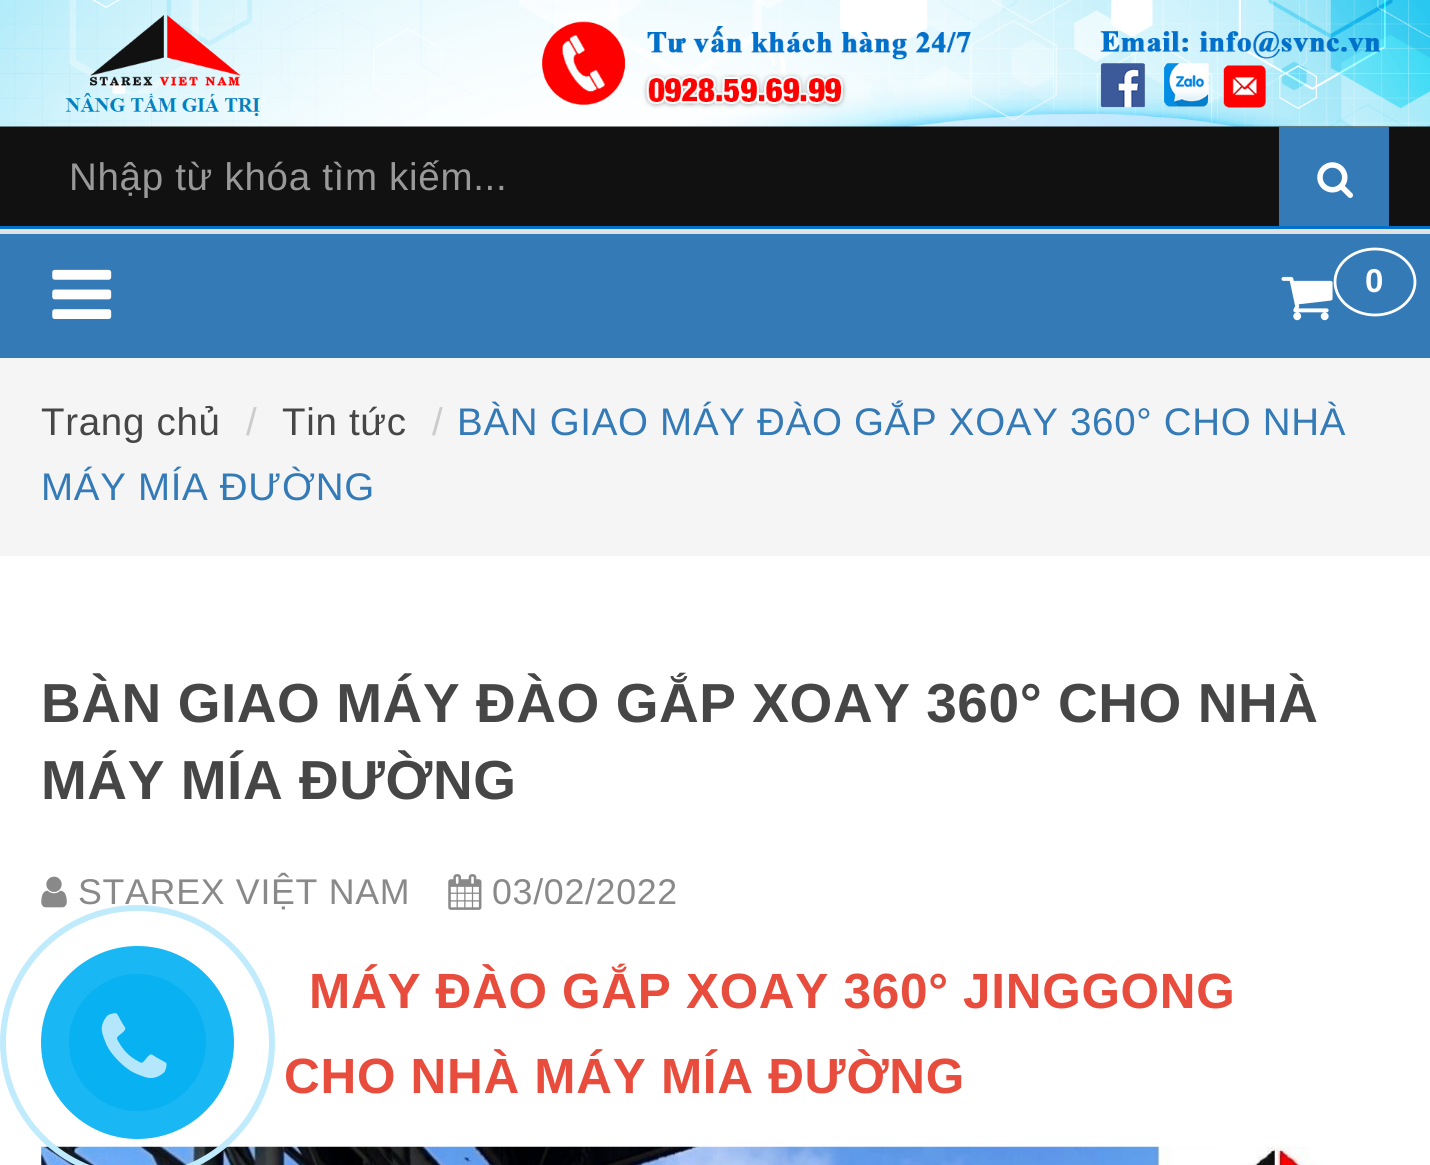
#include <cairo/cairo.h>
#include <math.h>
#include <stddef.h>

typedef struct { double x, y, w, h; unsigned color; } box_t;
static cairo_t *cr;

static void rgb(unsigned color)
{
	cairo_set_source_rgb(cr, (color >> 16) / 255.0, (color >> 8 & 255) / 255.0, (color & 255) / 255.0);
}

static void tracked(double x, double y, const char *s, double letter, double word)
{
	cairo_move_to(cr, x, y);
	while (*s) {
		char ch[5] = {0};
		int n = 0;
		do ch[n++] = *s++; while ((*s & 0xC0) == 0x80);
		cairo_show_text(cr, ch);
		cairo_rel_move_to(cr, letter + word * (*ch == ' '), 0);
	}
}

static void image(const char *path, double x, double y, double w, double h)
{
	cairo_surface_t *image = cairo_image_surface_create_from_png(path);
	cairo_save(cr);
	cairo_set_source_surface(cr, image, x, y);
	cairo_rectangle(cr, x, y, w, h);
	cairo_fill(cr);
	cairo_restore(cr);
	cairo_surface_destroy(image);
}

int main(void) {
	cairo_surface_t *surface = cairo_image_surface_create(CAIRO_FORMAT_RGB24, 1430, 1165);
	cr = cairo_create(surface);
	cairo_font_options_t *options = cairo_font_options_create();
	cairo_font_options_set_hint_metrics(options, CAIRO_HINT_METRICS_OFF);
	cairo_font_options_set_hint_style(options, CAIRO_HINT_STYLE_NONE);
	cairo_set_font_options(cr, options);
	cairo_set_miter_limit(cr, 4);
	rgb(0xffffff);
	cairo_paint(cr);
	rgb(0x111111);
	cairo_rectangle(cr, 0, 126, 1430, 100);
	cairo_fill(cr);
	image("img/1.png", 0, 0, 1430, 127);
	rgb(0x337ab7);
	cairo_rectangle(cr, 1279, 127, 110, 99);
	cairo_fill(cr);
	image("img/2.png", 1317, 162, 36, 36);
	{
		static const box_t items[] = {
			{0, 229, 1430, 5, 0xe1e1e1},
			{0, 226, 1430, 3, 0x0071cb},
			{0, 234, 1430, 124, 0x337ab7},
		};
		for (size_t i = 0; i < sizeof items / sizeof *items; i++) {
			rgb(items[i].color);
			cairo_rectangle(cr, items[i].x, items[i].y, items[i].w, items[i].h);
			cairo_fill(cr);
		}
	}
	image("img/3.png", 52, 269, 60, 50);
	image("img/4.png", 1281, 276, 52, 45);
	cairo_new_path(cr);
	cairo_move_to(cr, 1375, 249);
	cairo_curve_to(cr, 1397, 249, 1415, 263.5, 1415, 282);
	cairo_curve_to(cr, 1415, 300, 1397, 315, 1375, 315);
	cairo_curve_to(cr, 1353, 315, 1335, 300, 1335, 282);
	cairo_curve_to(cr, 1335, 263.5, 1353, 249, 1375, 249);
	cairo_close_path(cr);
	rgb(0xffffff);
	cairo_set_line_width(cr, 2.8);
	cairo_stroke(cr);
	rgb(0xf5f5f5);
	cairo_rectangle(cr, 0, 358, 1430, 198);
	cairo_fill(cr);
	image("img/5.png", 41, 876, 26, 32);
	image("img/6.png", 448, 874, 34, 36);
	image("img/7.png", 41, 1146, 1282, 19);
	cairo_select_font_face(cr, "Liberation Sans", CAIRO_FONT_SLANT_NORMAL, CAIRO_FONT_WEIGHT_NORMAL);
	cairo_set_font_size(cr, 38.5);
	rgb(0x999999);
	tracked(69, 190, "Nhập từ khóa tìm kiếm...", 0.7, 0);
	cairo_select_font_face(cr, "Liberation Sans", CAIRO_FONT_SLANT_NORMAL, CAIRO_FONT_WEIGHT_BOLD);
	cairo_set_font_size(cr, 33);
	rgb(0xffffff);
	tracked(1365, 292, "0", 0.7, 0);
	cairo_select_font_face(cr, "Liberation Sans", CAIRO_FONT_SLANT_NORMAL, CAIRO_FONT_WEIGHT_NORMAL);
	cairo_set_font_size(cr, 38.5);
	rgb(0xcccccc);
	tracked(432, 435, "/", 0.7, 0);
	rgb(0x337ab7);
	tracked(457, 435, "BÀN GIAO MÁY ĐÀO GẮP XOAY 360° CHO NHÀ", 0.7, 0);
	tracked(41, 500, "MÁY MÍA ĐƯỜNG", 0.7, 0);
	rgb(0x464646);
	tracked(41, 435, "Trang chủ", 0.7, 0);
	rgb(0xcccccc);
	tracked(246, 435, "/", 0.7, 0);
	rgb(0x464646);
	tracked(282, 435, "Tin tức", 0.7, 0);
	cairo_select_font_face(cr, "Liberation Sans", CAIRO_FONT_SLANT_NORMAL, CAIRO_FONT_WEIGHT_BOLD);
	cairo_set_font_size(cr, 55);
	tracked(41, 722, "BÀN GIAO MÁY ĐÀO GẮP XOAY 360° CHO NHÀ", 0.55, 0);
	tracked(41, 799, "MÁY MÍA ĐƯỜNG", 0.55, 0);
	cairo_select_font_face(cr, "Liberation Sans", CAIRO_FONT_SLANT_NORMAL, CAIRO_FONT_WEIGHT_NORMAL);
	cairo_set_font_size(cr, 35.75);
	rgb(0x898989);
	tracked(78, 904, "STAREX VIỆT NAM", 0.7, 0);
	tracked(492, 904, "03/02/2022", 0.7, 0);
	cairo_select_font_face(cr, "Liberation Sans", CAIRO_FONT_SLANT_NORMAL, CAIRO_FONT_WEIGHT_BOLD);
	cairo_set_font_size(cr, 49.5);
	rgb(0xe74c3c);
	tracked(309, 1008, "MÁY ĐÀO GẮP XOAY 360° JINGGONG", 0.7, 0);
	tracked(284, 1093, "CHO NHÀ MÁY MÍA ĐƯỜNG", 0.7, 0);
	cairo_new_path(cr);
	cairo_arc(cr, 137.5, 1042.5, 134.5, 0, 2 * M_PI);
	rgb(0xbfebfc);
	cairo_set_line_width(cr, 6);
	cairo_stroke(cr);
	cairo_set_source_rgba(cr, 0, 0.686, 0.949, 0.9);
	cairo_arc(cr, 137.5, 1042.5, 96.5, 0, 2 * M_PI);
	cairo_fill(cr);
	cairo_set_source_rgba(cr, 0, 0.686, 0.949, 0.7);
	cairo_arc(cr, 137.5, 1042.5, 68.5, 0, 2 * M_PI);
	cairo_fill(cr);
	image("img/8.png", 101, 1013, 66, 65);
	cairo_surface_write_to_png(surface, "page.png");
	cairo_font_options_destroy(options);
	cairo_destroy(cr);
	cairo_surface_destroy(surface);
	return 0;
}
